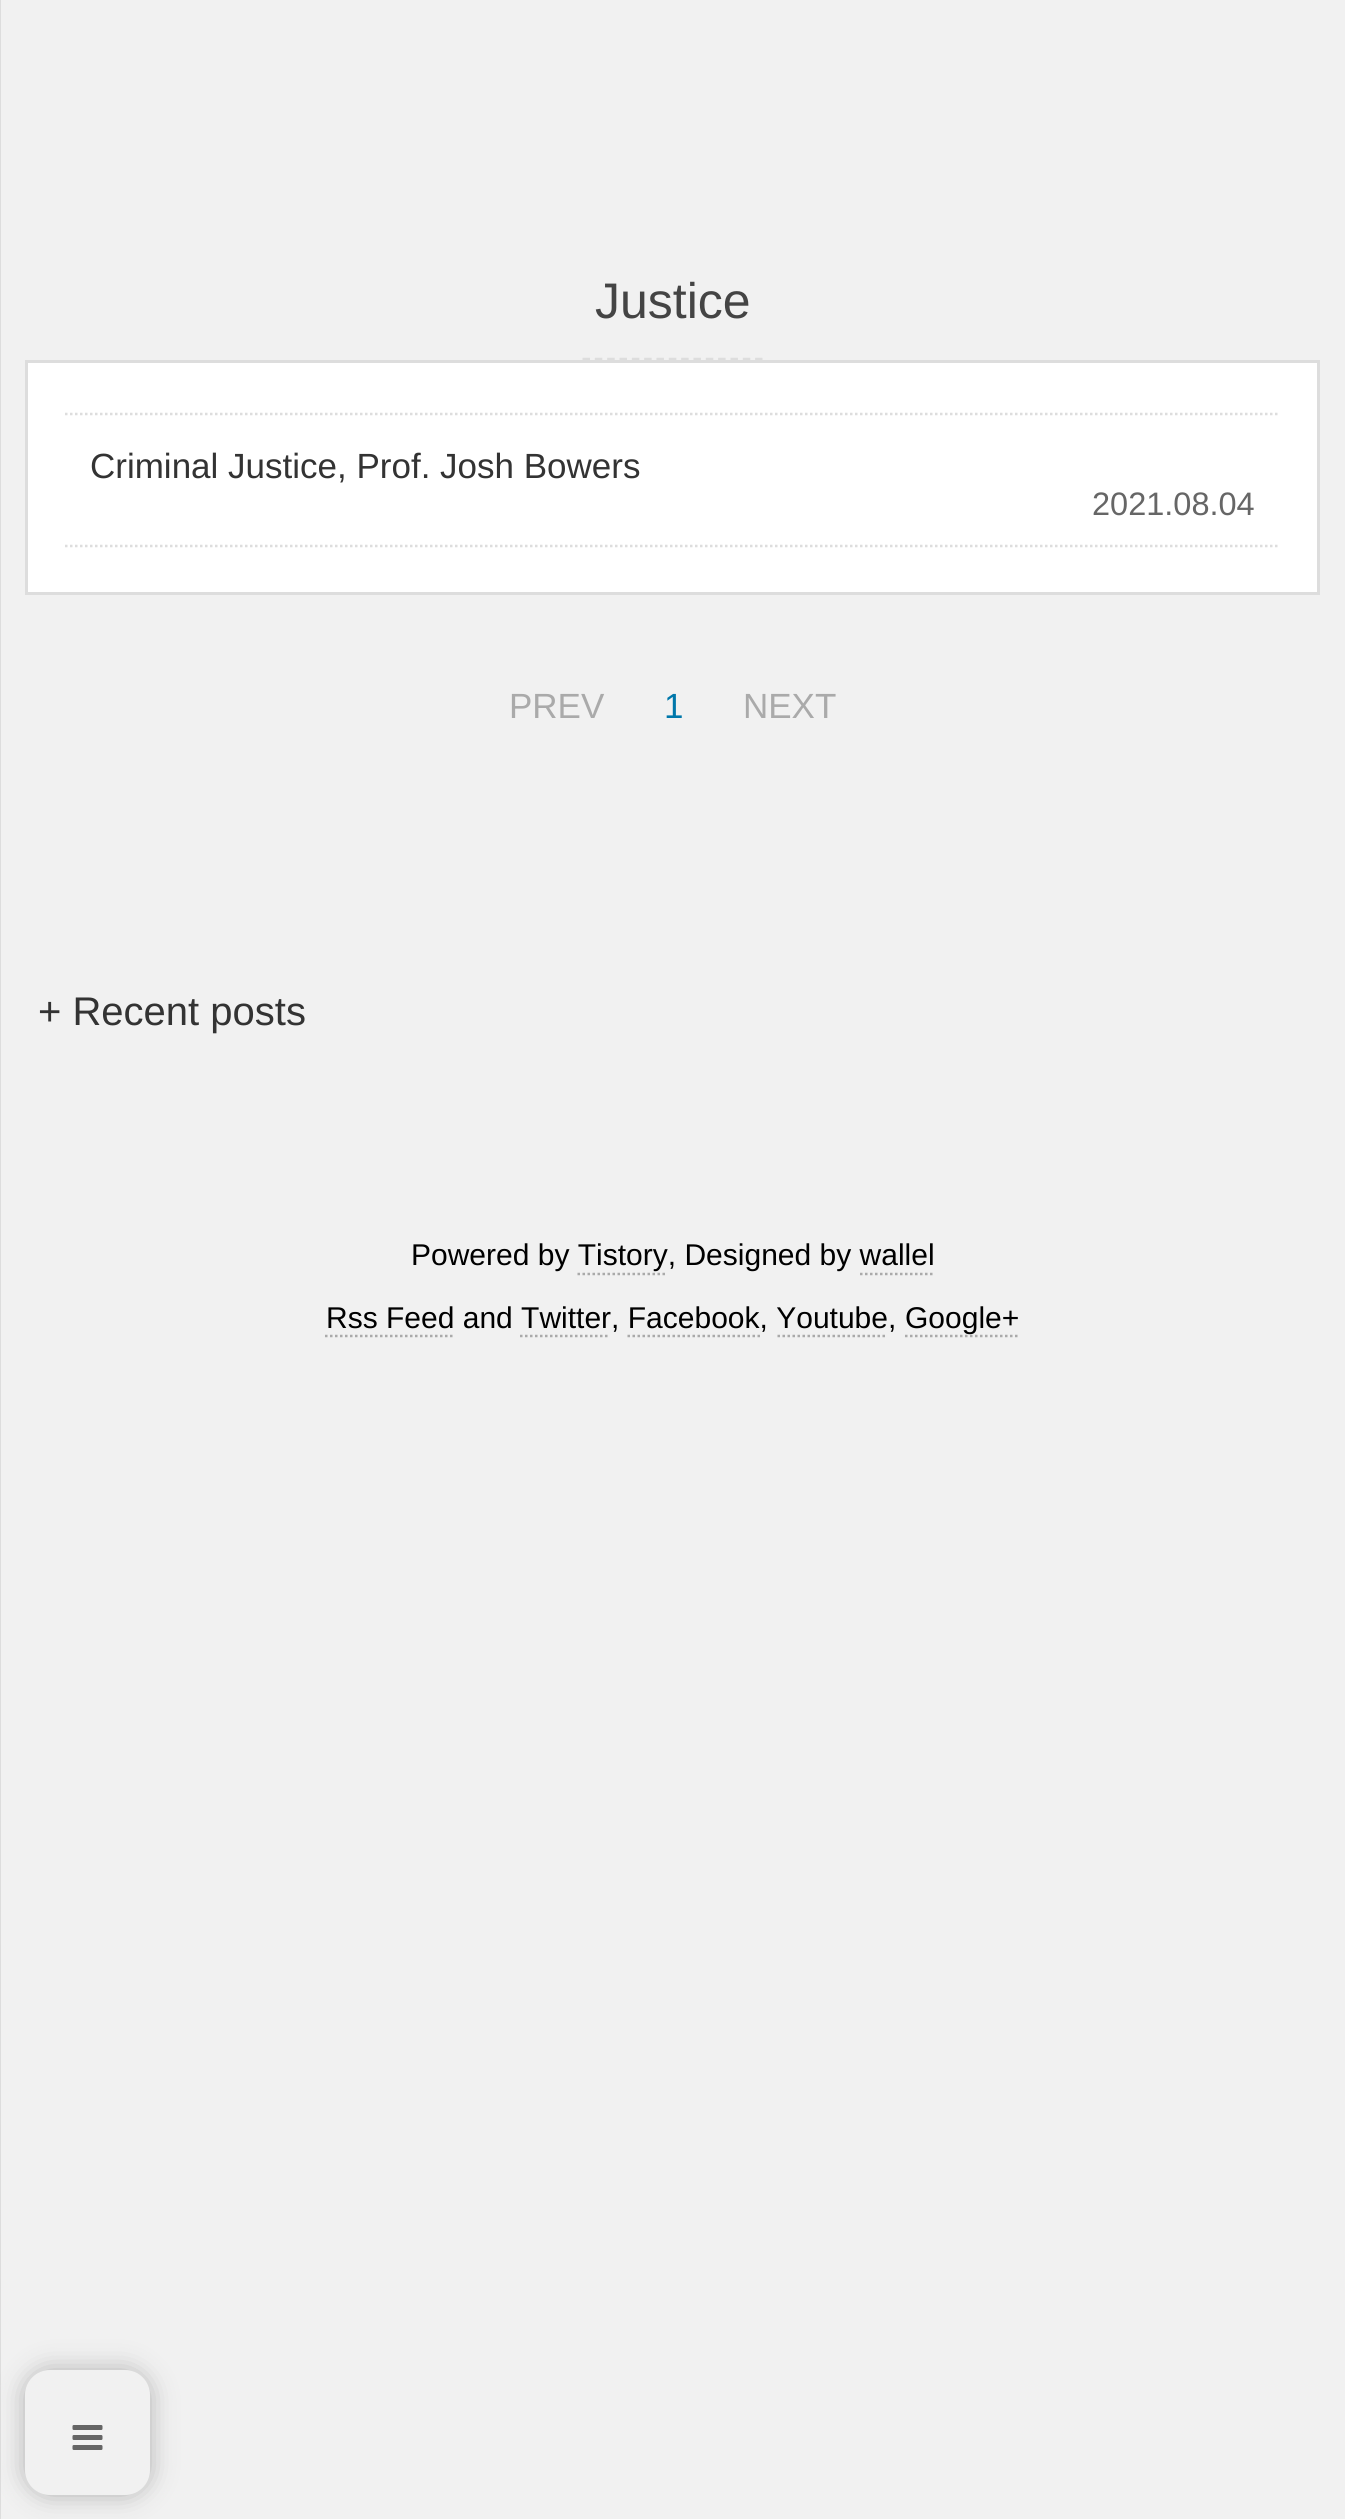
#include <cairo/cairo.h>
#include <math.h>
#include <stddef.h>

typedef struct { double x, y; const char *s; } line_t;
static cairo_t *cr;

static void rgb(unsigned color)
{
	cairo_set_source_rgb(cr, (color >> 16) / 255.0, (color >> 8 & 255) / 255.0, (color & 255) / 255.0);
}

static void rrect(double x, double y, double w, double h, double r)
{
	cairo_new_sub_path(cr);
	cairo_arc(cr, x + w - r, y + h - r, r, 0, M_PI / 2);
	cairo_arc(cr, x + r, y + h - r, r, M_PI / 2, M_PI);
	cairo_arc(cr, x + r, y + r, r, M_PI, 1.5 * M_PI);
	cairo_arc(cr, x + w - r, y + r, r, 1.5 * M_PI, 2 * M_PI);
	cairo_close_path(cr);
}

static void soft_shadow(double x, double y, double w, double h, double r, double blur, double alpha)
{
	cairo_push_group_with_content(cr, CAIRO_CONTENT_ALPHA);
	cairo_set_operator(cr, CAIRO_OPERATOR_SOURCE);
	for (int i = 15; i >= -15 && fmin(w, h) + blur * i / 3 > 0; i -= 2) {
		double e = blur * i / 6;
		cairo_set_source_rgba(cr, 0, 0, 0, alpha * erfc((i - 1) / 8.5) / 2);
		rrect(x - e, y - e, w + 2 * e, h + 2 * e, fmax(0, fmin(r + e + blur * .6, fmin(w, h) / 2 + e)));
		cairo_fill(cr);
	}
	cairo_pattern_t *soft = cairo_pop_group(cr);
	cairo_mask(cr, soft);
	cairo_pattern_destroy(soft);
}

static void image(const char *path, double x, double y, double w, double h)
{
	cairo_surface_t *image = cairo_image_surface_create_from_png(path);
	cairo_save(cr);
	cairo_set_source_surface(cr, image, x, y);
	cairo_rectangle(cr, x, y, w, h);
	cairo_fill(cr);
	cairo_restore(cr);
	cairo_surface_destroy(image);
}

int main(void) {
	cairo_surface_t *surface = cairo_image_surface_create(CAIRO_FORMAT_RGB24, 1345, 2519);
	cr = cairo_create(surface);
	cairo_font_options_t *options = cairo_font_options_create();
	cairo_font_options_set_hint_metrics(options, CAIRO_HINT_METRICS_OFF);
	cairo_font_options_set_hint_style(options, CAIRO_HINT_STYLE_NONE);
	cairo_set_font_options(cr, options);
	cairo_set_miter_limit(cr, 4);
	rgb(0xf1f1f1);
	cairo_paint(cr);
	rgb(0xdddddd);
	cairo_rectangle(cr, 0, 0, 1, 2519);
	cairo_fill(cr);
	rgb(0xffffff);
	cairo_rectangle(cr, 26.5, 361.5, 1292, 232);
	cairo_fill_preserve(cr);
	rgb(0xdddddd);
	cairo_set_line_width(cr, 3);
	cairo_stroke(cr);
	cairo_new_path(cr);
	cairo_move_to(cr, 582.5, 359);
	cairo_line_to(cr, 762.5, 359);
	cairo_set_line_width(cr, 2.5);
	cairo_set_dash(cr, (double[]){7.5, 4.83}, 2, 0);
	cairo_stroke(cr);
	cairo_new_path(cr);
	cairo_move_to(cr, 65, 414);
	cairo_line_to(cr, 1280, 414);
	cairo_set_dash(cr, (double[]){2.5, 2.5}, 2, 0);
	cairo_stroke(cr);
	cairo_new_path(cr);
	cairo_move_to(cr, 65, 546);
	cairo_line_to(cr, 1280, 546);
	cairo_stroke(cr);
	cairo_new_path(cr);
	cairo_move_to(cr, 577.5, 1274);
	cairo_line_to(cr, 667.5, 1274);
	rgb(0xaaaaaa);
	cairo_stroke(cr);
	cairo_new_path(cr);
	cairo_move_to(cr, 860, 1274);
	cairo_line_to(cr, 935, 1274);
	cairo_stroke(cr);
	cairo_new_path(cr);
	cairo_move_to(cr, 325, 1336);
	cairo_line_to(cr, 455, 1336);
	cairo_stroke(cr);
	cairo_new_path(cr);
	cairo_move_to(cr, 905, 1336);
	cairo_line_to(cr, 1020, 1336);
	cairo_stroke(cr);
	cairo_new_path(cr);
	cairo_move_to(cr, 520, 1336);
	cairo_line_to(cr, 610, 1336);
	cairo_stroke(cr);
	cairo_new_path(cr);
	cairo_move_to(cr, 627.5, 1336);
	cairo_line_to(cr, 760, 1336);
	cairo_stroke(cr);
	cairo_new_path(cr);
	cairo_move_to(cr, 777.5, 1336);
	cairo_line_to(cr, 887.5, 1336);
	cairo_stroke(cr);
	rgb(0xaaaaaa);
	soft_shadow(25, 2370, 125, 125, 25, 12.5, 0.9);
	rgb(0xf1f1f1);
	rrect(25, 2370, 125, 125, 25);
	cairo_fill(cr);
	image("img/1.png", 72, 2425, 31, 25);
	cairo_select_font_face(cr, "Liberation Sans", CAIRO_FONT_SLANT_NORMAL, CAIRO_FONT_WEIGHT_NORMAL);
	cairo_set_font_size(cr, 50);
	rgb(0x444444);
	cairo_move_to(cr, 595, 318);
	cairo_show_text(cr, "Justice");
	cairo_set_font_size(cr, 35);
	rgb(0x333333);
	cairo_move_to(cr, 90, 478);
	cairo_show_text(cr, "Criminal Justice, Prof. Josh Bowers");
	cairo_set_font_size(cr, 32.5);
	rgb(0x666666);
	cairo_move_to(cr, 1092, 515);
	cairo_show_text(cr, "2021.08.04");
	cairo_set_font_size(cr, 35);
	rgb(0xaaaaaa);
	cairo_move_to(cr, 509, 718);
	cairo_show_text(cr, "PREV");
	rgb(0x0077aa);
	cairo_move_to(cr, 664, 718);
	cairo_show_text(cr, "1");
	rgb(0xaaaaaa);
	cairo_move_to(cr, 743, 718);
	cairo_show_text(cr, "NEXT");
	cairo_set_font_size(cr, 40);
	rgb(0x333333);
	cairo_move_to(cr, 38, 1025);
	cairo_show_text(cr, "+ Recent posts");
	cairo_set_font_size(cr, 30);
	rgb(0x000000);
	{
		static const line_t items[] = {
			{411, 1265, "Powered by Tistory, Designed by wallel"},
			{326, 1328, "Rss Feed and Twitter, Facebook, Youtube,"},
			{905, 1328, "Google+"},
		};
		for (size_t i = 0; i < sizeof items / sizeof *items; i++) {
			cairo_move_to(cr, items[i].x, items[i].y);
			cairo_show_text(cr, items[i].s);
		}
	}
	cairo_surface_write_to_png(surface, "page.png");
	cairo_font_options_destroy(options);
	cairo_destroy(cr);
	cairo_surface_destroy(surface);
	return 0;
}
